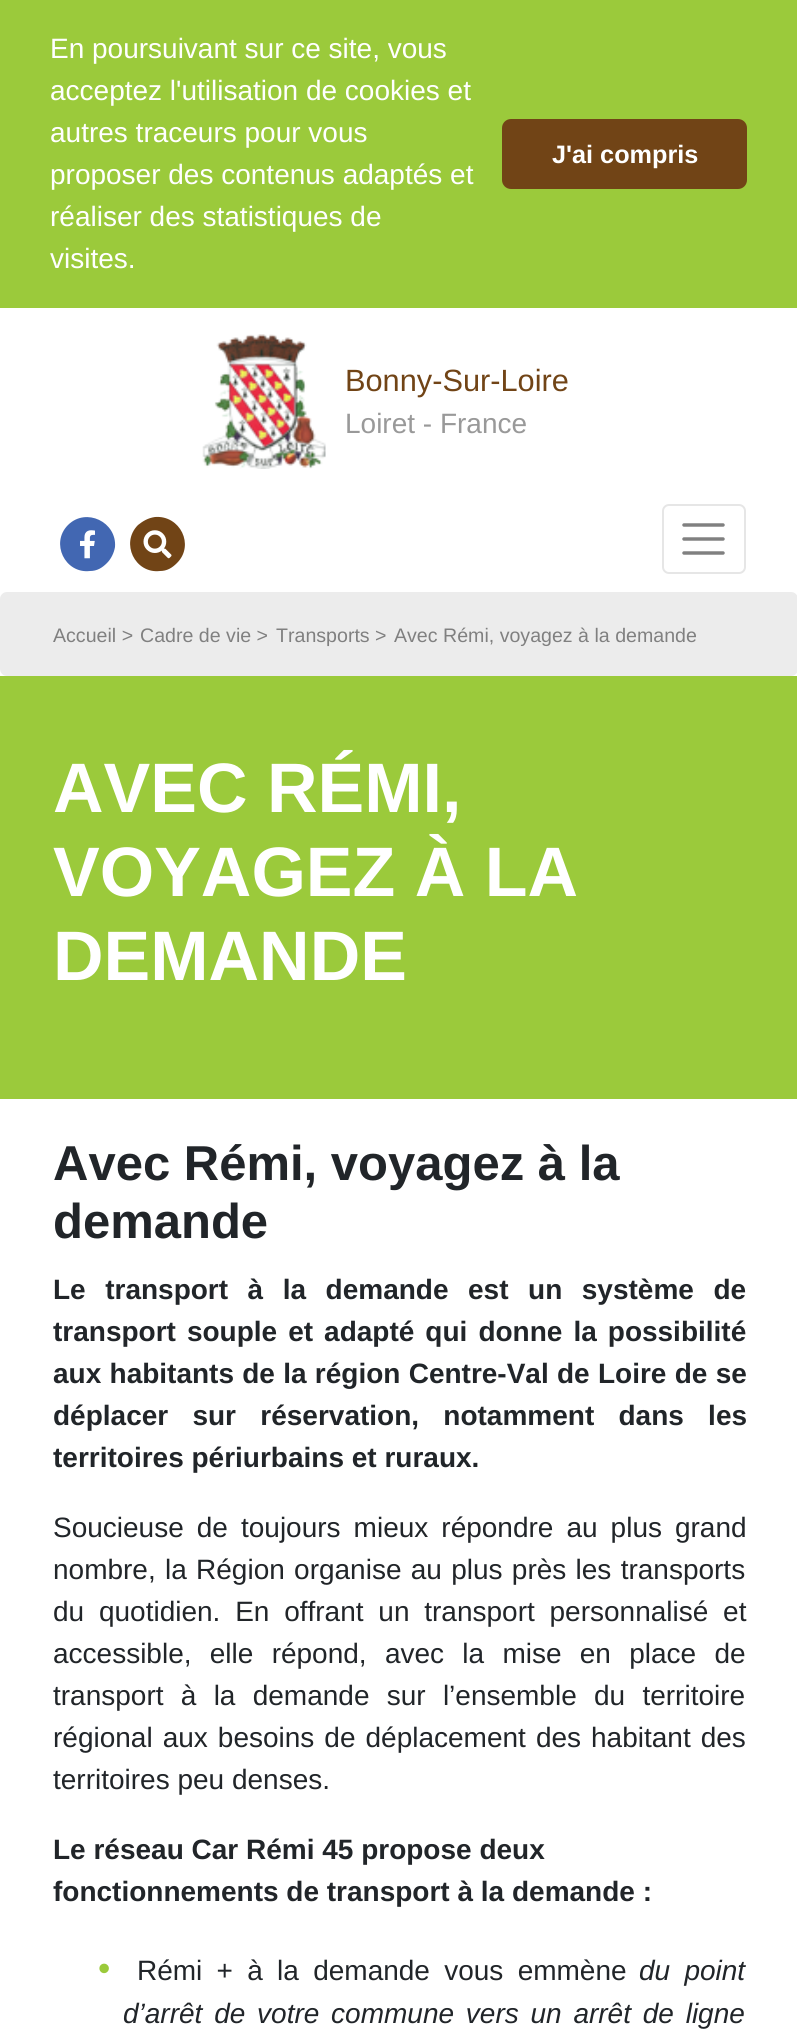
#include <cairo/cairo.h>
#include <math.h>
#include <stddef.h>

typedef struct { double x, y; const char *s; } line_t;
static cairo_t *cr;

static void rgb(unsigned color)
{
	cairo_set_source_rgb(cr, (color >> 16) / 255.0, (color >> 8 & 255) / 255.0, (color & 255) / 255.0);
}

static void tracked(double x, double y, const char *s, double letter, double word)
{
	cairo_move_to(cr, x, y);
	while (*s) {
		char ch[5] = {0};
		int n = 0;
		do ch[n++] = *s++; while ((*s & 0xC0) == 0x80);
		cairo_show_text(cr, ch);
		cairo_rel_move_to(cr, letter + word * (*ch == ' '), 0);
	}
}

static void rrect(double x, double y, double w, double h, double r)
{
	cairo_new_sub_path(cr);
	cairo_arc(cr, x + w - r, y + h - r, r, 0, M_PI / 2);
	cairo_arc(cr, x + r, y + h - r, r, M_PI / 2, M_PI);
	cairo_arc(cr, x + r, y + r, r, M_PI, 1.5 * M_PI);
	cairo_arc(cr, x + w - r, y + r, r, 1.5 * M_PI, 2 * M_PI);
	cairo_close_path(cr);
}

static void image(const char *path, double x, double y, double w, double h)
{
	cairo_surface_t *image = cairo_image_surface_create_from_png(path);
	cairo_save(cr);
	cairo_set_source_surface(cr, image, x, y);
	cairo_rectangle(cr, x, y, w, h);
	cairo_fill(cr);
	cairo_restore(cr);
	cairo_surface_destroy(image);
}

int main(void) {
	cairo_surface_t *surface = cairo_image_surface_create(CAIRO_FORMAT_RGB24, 797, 2039);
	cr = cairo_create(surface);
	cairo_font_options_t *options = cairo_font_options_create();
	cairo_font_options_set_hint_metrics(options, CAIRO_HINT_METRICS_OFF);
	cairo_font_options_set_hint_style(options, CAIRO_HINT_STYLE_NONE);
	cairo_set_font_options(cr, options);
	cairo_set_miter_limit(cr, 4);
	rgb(0xffffff);
	cairo_paint(cr);
	rgb(0x9bca3b);
	cairo_rectangle(cr, 0, 0, 797, 308);
	cairo_fill(cr);
	rgb(0x714416);
	rrect(502, 119, 245, 70, 9);
	cairo_fill(cr);
	image("img/1.png", 202, 334, 124, 135);
	rgb(0x4267b2);
	cairo_new_path(cr);
	cairo_move_to(cr, 68, 525);
	cairo_curve_to(cr, 86, 507, 117, 522, 115, 547);
	cairo_curve_to(cr, 114, 553, 111, 559, 107, 563);
	cairo_curve_to(cr, 102, 568, 97, 571, 90, 571);
	cairo_curve_to(cr, 65, 574, 50, 543, 68, 525);
	cairo_close_path(cr);
	cairo_fill(cr);
	image("img/2.png", 80, 530, 15, 29);
	rgb(0x714416);
	cairo_new_path(cr);
	cairo_move_to(cr, 138, 525);
	cairo_curve_to(cr, 143, 521, 148, 518, 155, 517);
	cairo_curve_to(cr, 180, 515, 195, 545, 177, 563);
	cairo_curve_to(cr, 172, 568, 167, 571, 160, 571);
	cairo_curve_to(cr, 135, 574, 120, 543, 138, 525);
	cairo_close_path(cr);
	cairo_fill(cr);
	image("img/3.png", 143, 530, 29, 29);
	rrect(663, 505, 82, 68, 6);
	rgb(0xe6e6e6);
	cairo_stroke(cr);
	cairo_new_path(cr);
	cairo_move_to(cr, 684, 525);
	cairo_line_to(cr, 723, 525);
	cairo_move_to(cr, 684, 539);
	cairo_line_to(cr, 723, 539);
	cairo_move_to(cr, 684, 553);
	cairo_line_to(cr, 723, 553);
	rgb(0x808080);
	cairo_set_line_width(cr, 3.5);
	cairo_set_line_cap(cr, CAIRO_LINE_CAP_ROUND);
	cairo_stroke(cr);
	rgb(0xececec);
	rrect(0, 592, 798, 84, 7);
	cairo_fill(cr);
	rgb(0x9bca3b);
	cairo_rectangle(cr, 0, 676, 797, 423);
	cairo_fill(cr);
	cairo_select_font_face(cr, "Liberation Sans", CAIRO_FONT_SLANT_NORMAL, CAIRO_FONT_WEIGHT_NORMAL);
	cairo_set_font_size(cr, 28);
	rgb(0xffffff);
	{
		static const line_t items[] = {
			{50, 58, "En poursuivant sur ce site, vous"},
			{50, 100, "acceptez l'utilisation de cookies et"},
			{50, 142, "autres traceurs pour vous"},
			{50, 184, "proposer des contenus adaptés et"},
			{50, 226, "réaliser des statistiques de"},
			{50, 268, "visites."},
		};
		for (size_t i = 0; i < sizeof items / sizeof *items; i++) {
			cairo_move_to(cr, items[i].x, items[i].y);
			cairo_show_text(cr, items[i].s);
		}
	}
	cairo_select_font_face(cr, "Liberation Sans", CAIRO_FONT_SLANT_NORMAL, CAIRO_FONT_WEIGHT_BOLD);
	cairo_set_font_size(cr, 25.25);
	cairo_move_to(cr, 552, 163);
	cairo_show_text(cr, "J'ai compris");
	cairo_select_font_face(cr, "Liberation Sans", CAIRO_FONT_SLANT_NORMAL, CAIRO_FONT_WEIGHT_NORMAL);
	cairo_set_font_size(cr, 30.75);
	rgb(0x714416);
	cairo_move_to(cr, 345, 391);
	cairo_show_text(cr, "Bonny-Sur-Loire");
	cairo_set_font_size(cr, 28);
	rgb(0x999999);
	cairo_move_to(cr, 345, 433);
	cairo_show_text(cr, "Loiret - France");
	cairo_set_font_size(cr, 19.6);
	rgb(0x808080);
	{
		static const line_t items[] = {
			{53, 642, "Accueil >"},
			{140, 642, "Cadre de vie >"},
			{276, 642, "Transports >"},
			{394, 642, "Avec Rémi, voyagez à la demande"},
		};
		for (size_t i = 0; i < sizeof items / sizeof *items; i++) {
			cairo_move_to(cr, items[i].x, items[i].y);
			cairo_show_text(cr, items[i].s);
		}
	}
	cairo_select_font_face(cr, "Liberation Sans", CAIRO_FONT_SLANT_NORMAL, CAIRO_FONT_WEIGHT_BOLD);
	cairo_set_font_size(cr, 70);
	rgb(0xffffff);
	{
		static const line_t items[] = {
			{53, 812, "AVEC RÉMI,"},
			{53, 896, "VOYAGEZ À LA"},
			{53, 980, "DEMANDE"},
		};
		for (size_t i = 0; i < sizeof items / sizeof *items; i++) {
			cairo_move_to(cr, items[i].x, items[i].y);
			cairo_show_text(cr, items[i].s);
		}
	}
	cairo_set_font_size(cr, 49);
	rgb(0x212529);
	cairo_move_to(cr, 53, 1180);
	cairo_show_text(cr, "Avec Rémi, voyagez à la");
	cairo_move_to(cr, 53, 1238);
	cairo_show_text(cr, "demande");
	cairo_set_font_size(cr, 28);
	tracked(53, 1299, "Le transport à la demande est un système de", 0, 11.75);
	tracked(53, 1341, "transport souple et adapté qui donne la possibilité", 0, 3.25);
	tracked(53, 1383, "aux habitants de la région Centre-Val de Loire de se", 0, 0.5);
	tracked(53, 1425, "déplacer sur réservation, notamment dans les", 0, 16.5);
	cairo_move_to(cr, 53, 1467);
	cairo_show_text(cr, "territoires périurbains et ruraux.");
	cairo_select_font_face(cr, "Liberation Sans", CAIRO_FONT_SLANT_NORMAL, CAIRO_FONT_WEIGHT_NORMAL);
	tracked(53, 1537, "Soucieuse de toujours mieux répondre au plus grand", 0, 5.25);
	tracked(53, 1579, "nombre, la Région organise au plus près les transports", 0, 1.5);
	tracked(53, 1621, "du quotidien. En offrant un transport personnalisé et", 0, 7);
	tracked(53, 1663, "accessible, elle répond, avec la mise en place de", 0, 10.5);
	tracked(53, 1705, "transport à la demande sur l’ensemble du territoire", 0, 9.5);
	tracked(53, 1747, "régional aux besoins de déplacement des habitant des", 0, 2.25);
	cairo_move_to(cr, 53, 1789);
	cairo_show_text(cr, "territoires peu denses.");
	cairo_select_font_face(cr, "Liberation Sans", CAIRO_FONT_SLANT_NORMAL, CAIRO_FONT_WEIGHT_BOLD);
	cairo_move_to(cr, 53, 1859);
	cairo_show_text(cr, "Le réseau Car Rémi 45 propose deux");
	cairo_move_to(cr, 53, 1901);
	cairo_show_text(cr, "fonctionnements de transport à la demande :");
	cairo_select_font_face(cr, "Liberation Sans", CAIRO_FONT_SLANT_NORMAL, CAIRO_FONT_WEIGHT_NORMAL);
	cairo_set_font_size(cr, 35);
	rgb(0x9bca3b);
	cairo_move_to(cr, 98, 1980);
	cairo_show_text(cr, "•");
	cairo_set_font_size(cr, 28);
	rgb(0x212529);
	tracked(137, 1980, "Rémi + à la demande vous emmène", 0, 6.5);
	cairo_select_font_face(cr, "Liberation Sans", CAIRO_FONT_SLANT_ITALIC, CAIRO_FONT_WEIGHT_NORMAL);
	tracked(639, 1980, "du point", 0, 6.5);
	tracked(123, 2023, "d’arrêt de votre commune vers un arrêt de ligne", 0, 4);
	cairo_surface_write_to_png(surface, "page.png");
	cairo_font_options_destroy(options);
	cairo_destroy(cr);
	cairo_surface_destroy(surface);
	return 0;
}
